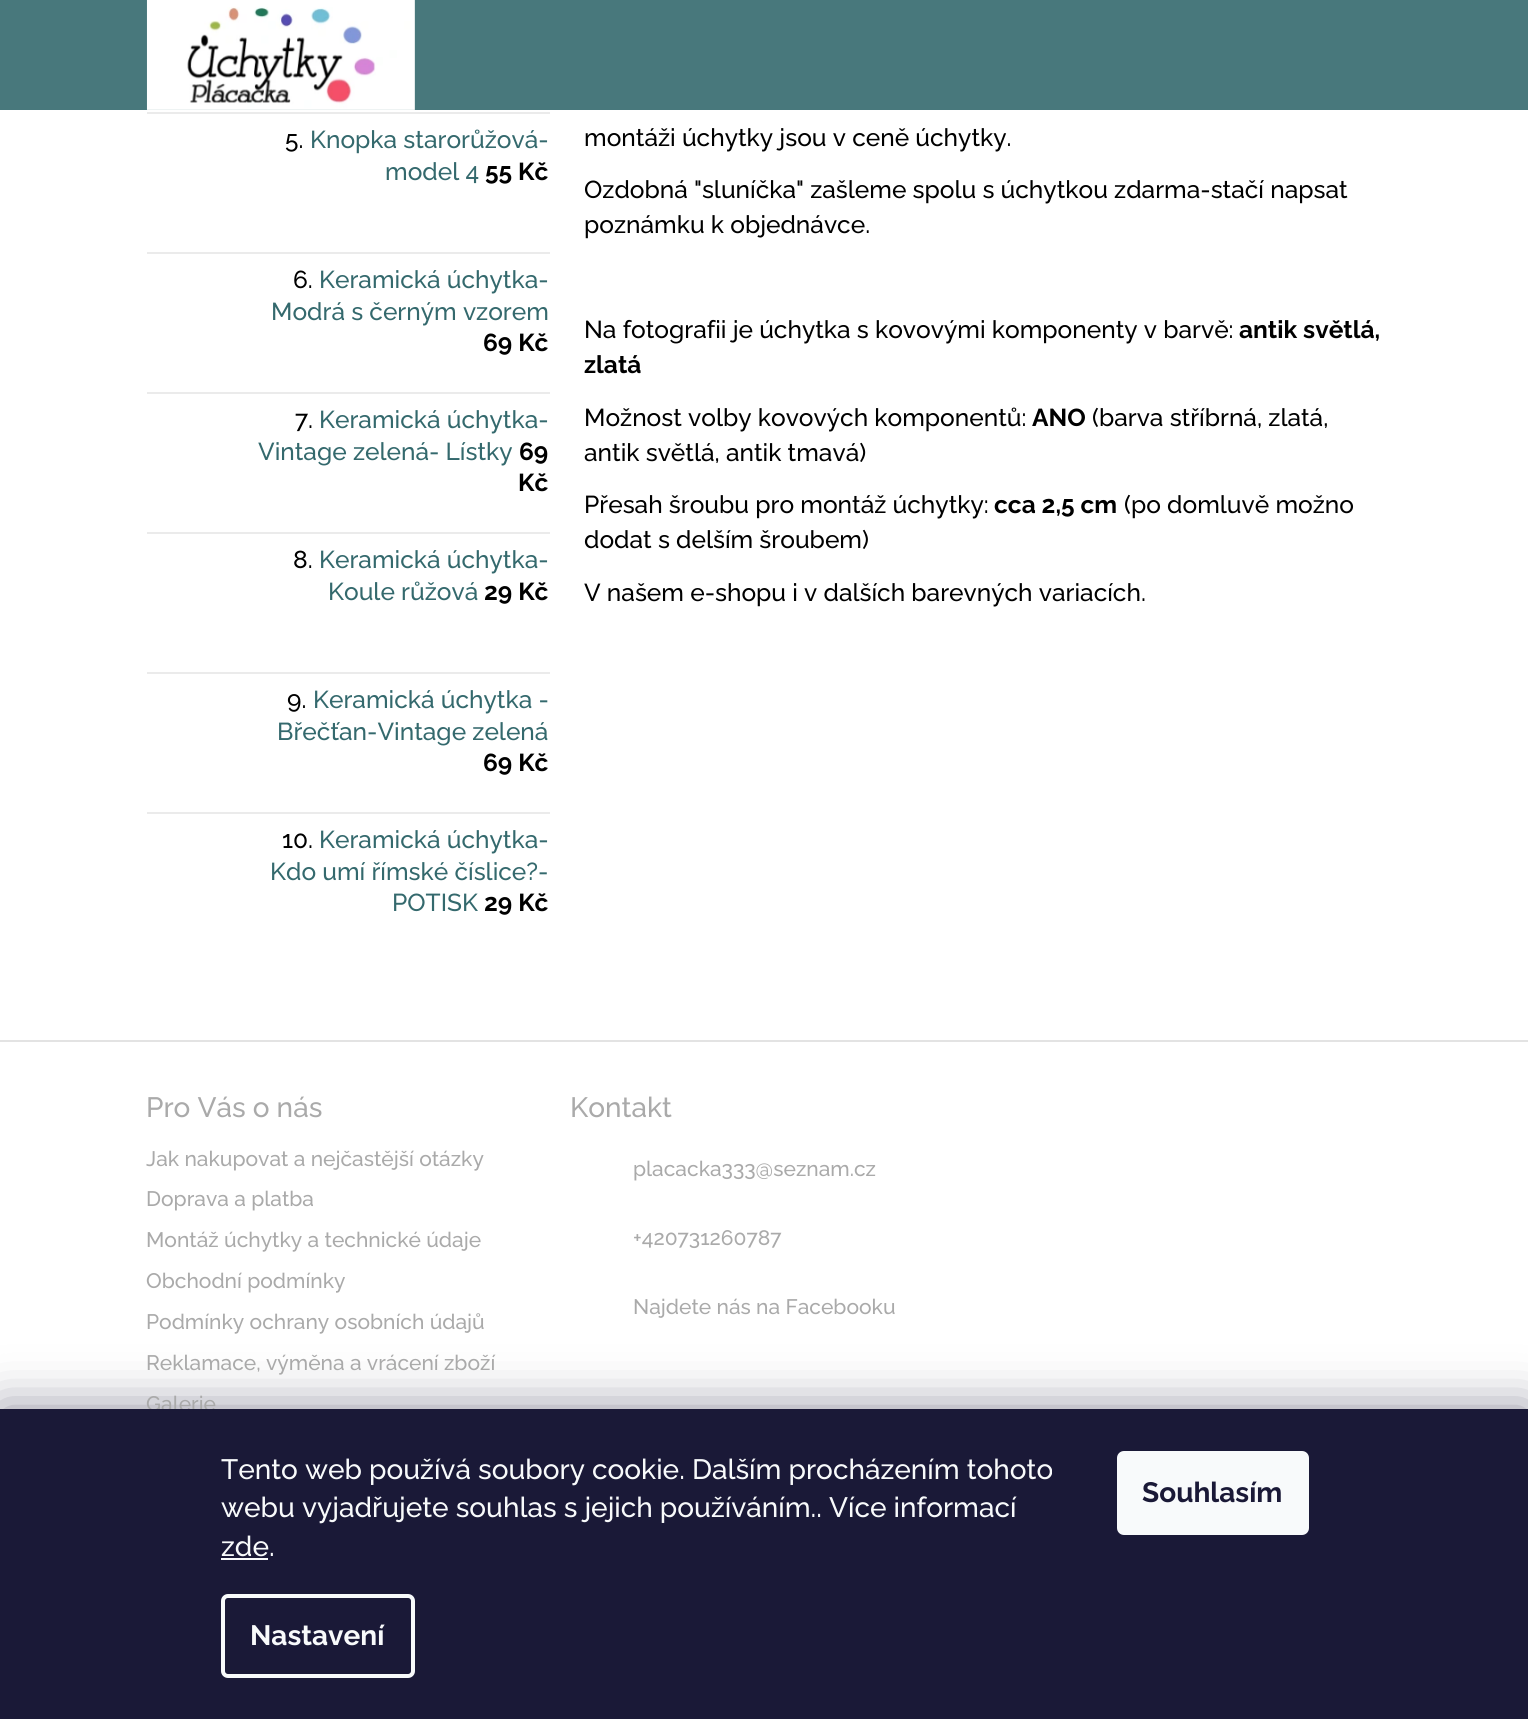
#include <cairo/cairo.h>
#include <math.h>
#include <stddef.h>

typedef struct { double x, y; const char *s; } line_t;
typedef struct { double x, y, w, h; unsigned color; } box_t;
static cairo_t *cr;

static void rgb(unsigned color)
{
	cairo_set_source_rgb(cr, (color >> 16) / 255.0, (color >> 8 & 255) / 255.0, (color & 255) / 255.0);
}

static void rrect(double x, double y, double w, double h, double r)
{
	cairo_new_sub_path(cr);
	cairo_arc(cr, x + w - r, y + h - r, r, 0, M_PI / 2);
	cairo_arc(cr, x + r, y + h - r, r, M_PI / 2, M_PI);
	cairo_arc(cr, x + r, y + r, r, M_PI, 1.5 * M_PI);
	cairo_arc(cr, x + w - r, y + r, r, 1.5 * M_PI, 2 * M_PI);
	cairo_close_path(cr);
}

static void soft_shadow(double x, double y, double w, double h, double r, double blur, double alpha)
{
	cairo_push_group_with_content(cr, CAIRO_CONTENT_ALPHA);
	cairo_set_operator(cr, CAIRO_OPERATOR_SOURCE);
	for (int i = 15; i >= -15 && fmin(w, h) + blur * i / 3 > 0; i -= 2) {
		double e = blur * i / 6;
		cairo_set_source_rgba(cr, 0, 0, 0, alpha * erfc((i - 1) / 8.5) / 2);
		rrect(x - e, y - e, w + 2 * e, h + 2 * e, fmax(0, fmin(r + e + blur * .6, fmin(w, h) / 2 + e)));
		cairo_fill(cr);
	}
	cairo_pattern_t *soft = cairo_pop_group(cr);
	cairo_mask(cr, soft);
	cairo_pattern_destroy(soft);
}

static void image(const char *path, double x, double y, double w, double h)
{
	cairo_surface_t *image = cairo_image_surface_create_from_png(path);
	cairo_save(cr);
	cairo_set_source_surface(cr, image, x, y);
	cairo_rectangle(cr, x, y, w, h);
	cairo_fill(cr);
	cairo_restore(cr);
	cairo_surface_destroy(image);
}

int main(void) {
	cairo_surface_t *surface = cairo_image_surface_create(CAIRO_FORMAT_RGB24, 1528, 1719);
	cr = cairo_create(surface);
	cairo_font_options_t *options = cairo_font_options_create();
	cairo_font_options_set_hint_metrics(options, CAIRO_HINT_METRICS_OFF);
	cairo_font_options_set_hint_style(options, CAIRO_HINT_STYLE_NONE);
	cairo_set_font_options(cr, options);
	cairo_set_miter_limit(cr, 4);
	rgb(0xffffff);
	cairo_paint(cr);
	cairo_set_source_rgba(cr, 0.208, 0.416, 0.431, 0.9);
	cairo_rectangle(cr, 0, 0, 1528, 110);
	cairo_fill(cr);
	image("img/1.png", 146, 0, 269, 110);
	{
		static const box_t items[] = {
			{147, 112, 403, 2, 0xebebeb},
			{147, 252, 403, 2, 0xebebeb},
			{147, 392, 403, 2, 0xebebeb},
			{147, 532, 403, 2, 0xebebeb},
			{147, 672, 403, 2, 0xebebeb},
			{147, 812, 403, 2, 0xebebeb},
			{0, 1040, 1528, 2, 0xe3e3e3},
		};
		for (size_t i = 0; i < sizeof items / sizeof *items; i++) {
			rgb(items[i].color);
			cairo_rectangle(cr, items[i].x, items[i].y, items[i].w, items[i].h);
			cairo_fill(cr);
		}
	}
	rgb(0x1b1939);
	soft_shadow(0, 1409, 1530, 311, 0, 26, 0.5);
	cairo_select_font_face(cr, "Raleway Medium", CAIRO_FONT_SLANT_NORMAL, CAIRO_FONT_WEIGHT_NORMAL);
	cairo_set_font_size(cr, 24.5);
	rgb(0x000000);
	cairo_move_to(cr, 285, 148);
	cairo_show_text(cr, "5.");
	rgb(0x34696d);
	cairo_move_to(cr, 310, 148);
	cairo_show_text(cr, "Knopka starorůžová-");
	cairo_move_to(cr, 385, 180);
	cairo_show_text(cr, "model 4");
	cairo_select_font_face(cr, "Raleway", CAIRO_FONT_SLANT_NORMAL, CAIRO_FONT_WEIGHT_BOLD);
	rgb(0x000000);
	cairo_move_to(cr, 485, 180);
	cairo_show_text(cr, "55 Kč");
	cairo_select_font_face(cr, "Raleway Medium", CAIRO_FONT_SLANT_NORMAL, CAIRO_FONT_WEIGHT_NORMAL);
	cairo_move_to(cr, 293, 288);
	cairo_show_text(cr, "6.");
	rgb(0x34696d);
	cairo_move_to(cr, 319, 288);
	cairo_show_text(cr, "Keramická úchytka-");
	cairo_move_to(cr, 271, 320);
	cairo_show_text(cr, "Modrá s černým vzorem");
	cairo_select_font_face(cr, "Raleway", CAIRO_FONT_SLANT_NORMAL, CAIRO_FONT_WEIGHT_BOLD);
	rgb(0x000000);
	cairo_move_to(cr, 483, 351);
	cairo_show_text(cr, "69 Kč");
	cairo_select_font_face(cr, "Raleway Medium", CAIRO_FONT_SLANT_NORMAL, CAIRO_FONT_WEIGHT_NORMAL);
	cairo_move_to(cr, 295, 428);
	cairo_show_text(cr, "7.");
	rgb(0x34696d);
	cairo_move_to(cr, 319, 428);
	cairo_show_text(cr, "Keramická úchytka-");
	cairo_move_to(cr, 258, 460);
	cairo_show_text(cr, "Vintage zelená- Lístky");
	cairo_select_font_face(cr, "Raleway", CAIRO_FONT_SLANT_NORMAL, CAIRO_FONT_WEIGHT_BOLD);
	rgb(0x000000);
	cairo_move_to(cr, 519, 460);
	cairo_show_text(cr, "69");
	cairo_move_to(cr, 518, 491);
	cairo_show_text(cr, "Kč");
	cairo_select_font_face(cr, "Raleway Medium", CAIRO_FONT_SLANT_NORMAL, CAIRO_FONT_WEIGHT_NORMAL);
	cairo_move_to(cr, 293, 568);
	cairo_show_text(cr, "8.");
	rgb(0x34696d);
	cairo_move_to(cr, 319, 568);
	cairo_show_text(cr, "Keramická úchytka-");
	cairo_move_to(cr, 328, 600);
	cairo_show_text(cr, "Koule růžová");
	cairo_select_font_face(cr, "Raleway", CAIRO_FONT_SLANT_NORMAL, CAIRO_FONT_WEIGHT_BOLD);
	rgb(0x000000);
	cairo_move_to(cr, 484, 600);
	cairo_show_text(cr, "29 Kč");
	cairo_select_font_face(cr, "Raleway Medium", CAIRO_FONT_SLANT_NORMAL, CAIRO_FONT_WEIGHT_NORMAL);
	cairo_move_to(cr, 287, 708);
	cairo_show_text(cr, "9.");
	rgb(0x34696d);
	cairo_move_to(cr, 313, 708);
	cairo_show_text(cr, "Keramická úchytka -");
	cairo_move_to(cr, 277, 740);
	cairo_show_text(cr, "Břečťan-Vintage zelená");
	cairo_select_font_face(cr, "Raleway", CAIRO_FONT_SLANT_NORMAL, CAIRO_FONT_WEIGHT_BOLD);
	rgb(0x000000);
	cairo_move_to(cr, 483, 771);
	cairo_show_text(cr, "69 Kč");
	cairo_select_font_face(cr, "Raleway Medium", CAIRO_FONT_SLANT_NORMAL, CAIRO_FONT_WEIGHT_NORMAL);
	cairo_move_to(cr, 282, 848);
	cairo_show_text(cr, "10.");
	rgb(0x34696d);
	{
		static const line_t items[] = {
			{319, 848, "Keramická úchytka-"},
			{270, 880, "Kdo umí římské číslice?-"},
			{392, 911, "POTISK"},
		};
		for (size_t i = 0; i < sizeof items / sizeof *items; i++) {
			cairo_move_to(cr, items[i].x, items[i].y);
			cairo_show_text(cr, items[i].s);
		}
	}
	cairo_select_font_face(cr, "Raleway", CAIRO_FONT_SLANT_NORMAL, CAIRO_FONT_WEIGHT_BOLD);
	rgb(0x000000);
	cairo_move_to(cr, 484, 911);
	cairo_show_text(cr, "29 Kč");
	cairo_select_font_face(cr, "Raleway Medium", CAIRO_FONT_SLANT_NORMAL, CAIRO_FONT_WEIGHT_NORMAL);
	{
		static const line_t items[] = {
			{584, 146, "montáži úchytky jsou v ceně úchytky."},
			{584, 198, "Ozdobná \"sluníčka\" zašleme spolu s úchytkou zdarma-stačí napsat"},
			{584, 233, "poznámku k objednávce."},
			{584, 338, "Na fotografii je úchytka s kovovými komponenty v barvě:"},
		};
		for (size_t i = 0; i < sizeof items / sizeof *items; i++) {
			cairo_move_to(cr, items[i].x, items[i].y);
			cairo_show_text(cr, items[i].s);
		}
	}
	cairo_select_font_face(cr, "Raleway", CAIRO_FONT_SLANT_NORMAL, CAIRO_FONT_WEIGHT_BOLD);
	cairo_move_to(cr, 1239, 338);
	cairo_show_text(cr, "antik světlá,");
	cairo_move_to(cr, 584, 373);
	cairo_show_text(cr, "zlatá");
	cairo_select_font_face(cr, "Raleway Medium", CAIRO_FONT_SLANT_NORMAL, CAIRO_FONT_WEIGHT_NORMAL);
	cairo_move_to(cr, 584, 426);
	cairo_show_text(cr, "Možnost volby kovových komponentů:");
	cairo_select_font_face(cr, "Raleway", CAIRO_FONT_SLANT_NORMAL, CAIRO_FONT_WEIGHT_BOLD);
	cairo_move_to(cr, 1032, 426);
	cairo_show_text(cr, "ANO");
	cairo_select_font_face(cr, "Raleway Medium", CAIRO_FONT_SLANT_NORMAL, CAIRO_FONT_WEIGHT_NORMAL);
	{
		static const line_t items[] = {
			{1092, 426, "(barva stříbrná, zlatá,"},
			{584, 461, "antik světlá, antik tmavá)"},
			{584, 513, "Přesah šroubu pro montáž úchytky:"},
		};
		for (size_t i = 0; i < sizeof items / sizeof *items; i++) {
			cairo_move_to(cr, items[i].x, items[i].y);
			cairo_show_text(cr, items[i].s);
		}
	}
	cairo_select_font_face(cr, "Raleway", CAIRO_FONT_SLANT_NORMAL, CAIRO_FONT_WEIGHT_BOLD);
	cairo_move_to(cr, 994, 513);
	cairo_show_text(cr, "cca 2,5 cm");
	cairo_select_font_face(cr, "Raleway Medium", CAIRO_FONT_SLANT_NORMAL, CAIRO_FONT_WEIGHT_NORMAL);
	{
		static const line_t items[] = {
			{1124, 513, "(po domluvě možno"},
			{584, 548, "dodat s delším šroubem)"},
			{584, 601, "V našem e-shopu i v dalších barevných variacích."},
		};
		for (size_t i = 0; i < sizeof items / sizeof *items; i++) {
			cairo_move_to(cr, items[i].x, items[i].y);
			cairo_show_text(cr, items[i].s);
		}
	}
	cairo_set_font_size(cr, 28);
	rgb(0xaaaaaa);
	cairo_move_to(cr, 146, 1117);
	cairo_show_text(cr, "Pro Vás o nás");
	cairo_set_font_size(cr, 21);
	{
		static const line_t items[] = {
			{146, 1166, "Jak nakupovat a nejčastější otázky"},
			{146, 1206, "Doprava a platba"},
			{146, 1247, "Montáž úchytky a technické údaje"},
			{146, 1288, "Obchodní podmínky"},
			{146, 1329, "Podmínky ochrany osobních údajů"},
			{146, 1370, "Reklamace, výměna a vrácení zboží"},
			{146, 1411, "Galerie"},
		};
		for (size_t i = 0; i < sizeof items / sizeof *items; i++) {
			cairo_move_to(cr, items[i].x, items[i].y);
			cairo_show_text(cr, items[i].s);
		}
	}
	cairo_set_font_size(cr, 28);
	cairo_move_to(cr, 570, 1117);
	cairo_show_text(cr, "Kontakt");
	cairo_set_font_size(cr, 21);
	{
		static const line_t items[] = {
			{633, 1176, "placacka333@seznam.cz"},
			{633, 1245, "+420731260787"},
			{633, 1314, "Najdete nás na Facebooku"},
		};
		for (size_t i = 0; i < sizeof items / sizeof *items; i++) {
			cairo_move_to(cr, items[i].x, items[i].y);
			cairo_show_text(cr, items[i].s);
		}
	}
	rgb(0x1a1937);
	cairo_rectangle(cr, 0, 1409, 1528, 310);
	cairo_fill(cr);
	cairo_set_font_size(cr, 28);
	rgb(0xf8fafb);
	{
		static const line_t items[] = {
			{221, 1479, "Tento web používá soubory cookie. Dalším procházením tohoto"},
			{221, 1517, "webu vyjadřujete souhlas s jejich používáním.. Více informací"},
			{221, 1556, "zde."},
		};
		for (size_t i = 0; i < sizeof items / sizeof *items; i++) {
			cairo_move_to(cr, items[i].x, items[i].y);
			cairo_show_text(cr, items[i].s);
		}
	}
	cairo_rectangle(cr, 221, 1558, 47, 2);
	cairo_fill(cr);
	rrect(223, 1596, 190, 80, 5);
	cairo_set_line_width(cr, 4);
	cairo_stroke(cr);
	cairo_select_font_face(cr, "Raleway", CAIRO_FONT_SLANT_NORMAL, CAIRO_FONT_WEIGHT_BOLD);
	cairo_move_to(cr, 250, 1645);
	cairo_show_text(cr, "Nastavení");
	rrect(1117, 1451, 192, 84, 7);
	cairo_fill(cr);
	rgb(0x1a1937);
	cairo_move_to(cr, 1142, 1502);
	cairo_show_text(cr, "Souhlasím");
	cairo_surface_write_to_png(surface, "page.png");
	cairo_font_options_destroy(options);
	cairo_destroy(cr);
	cairo_surface_destroy(surface);
	return 0;
}
